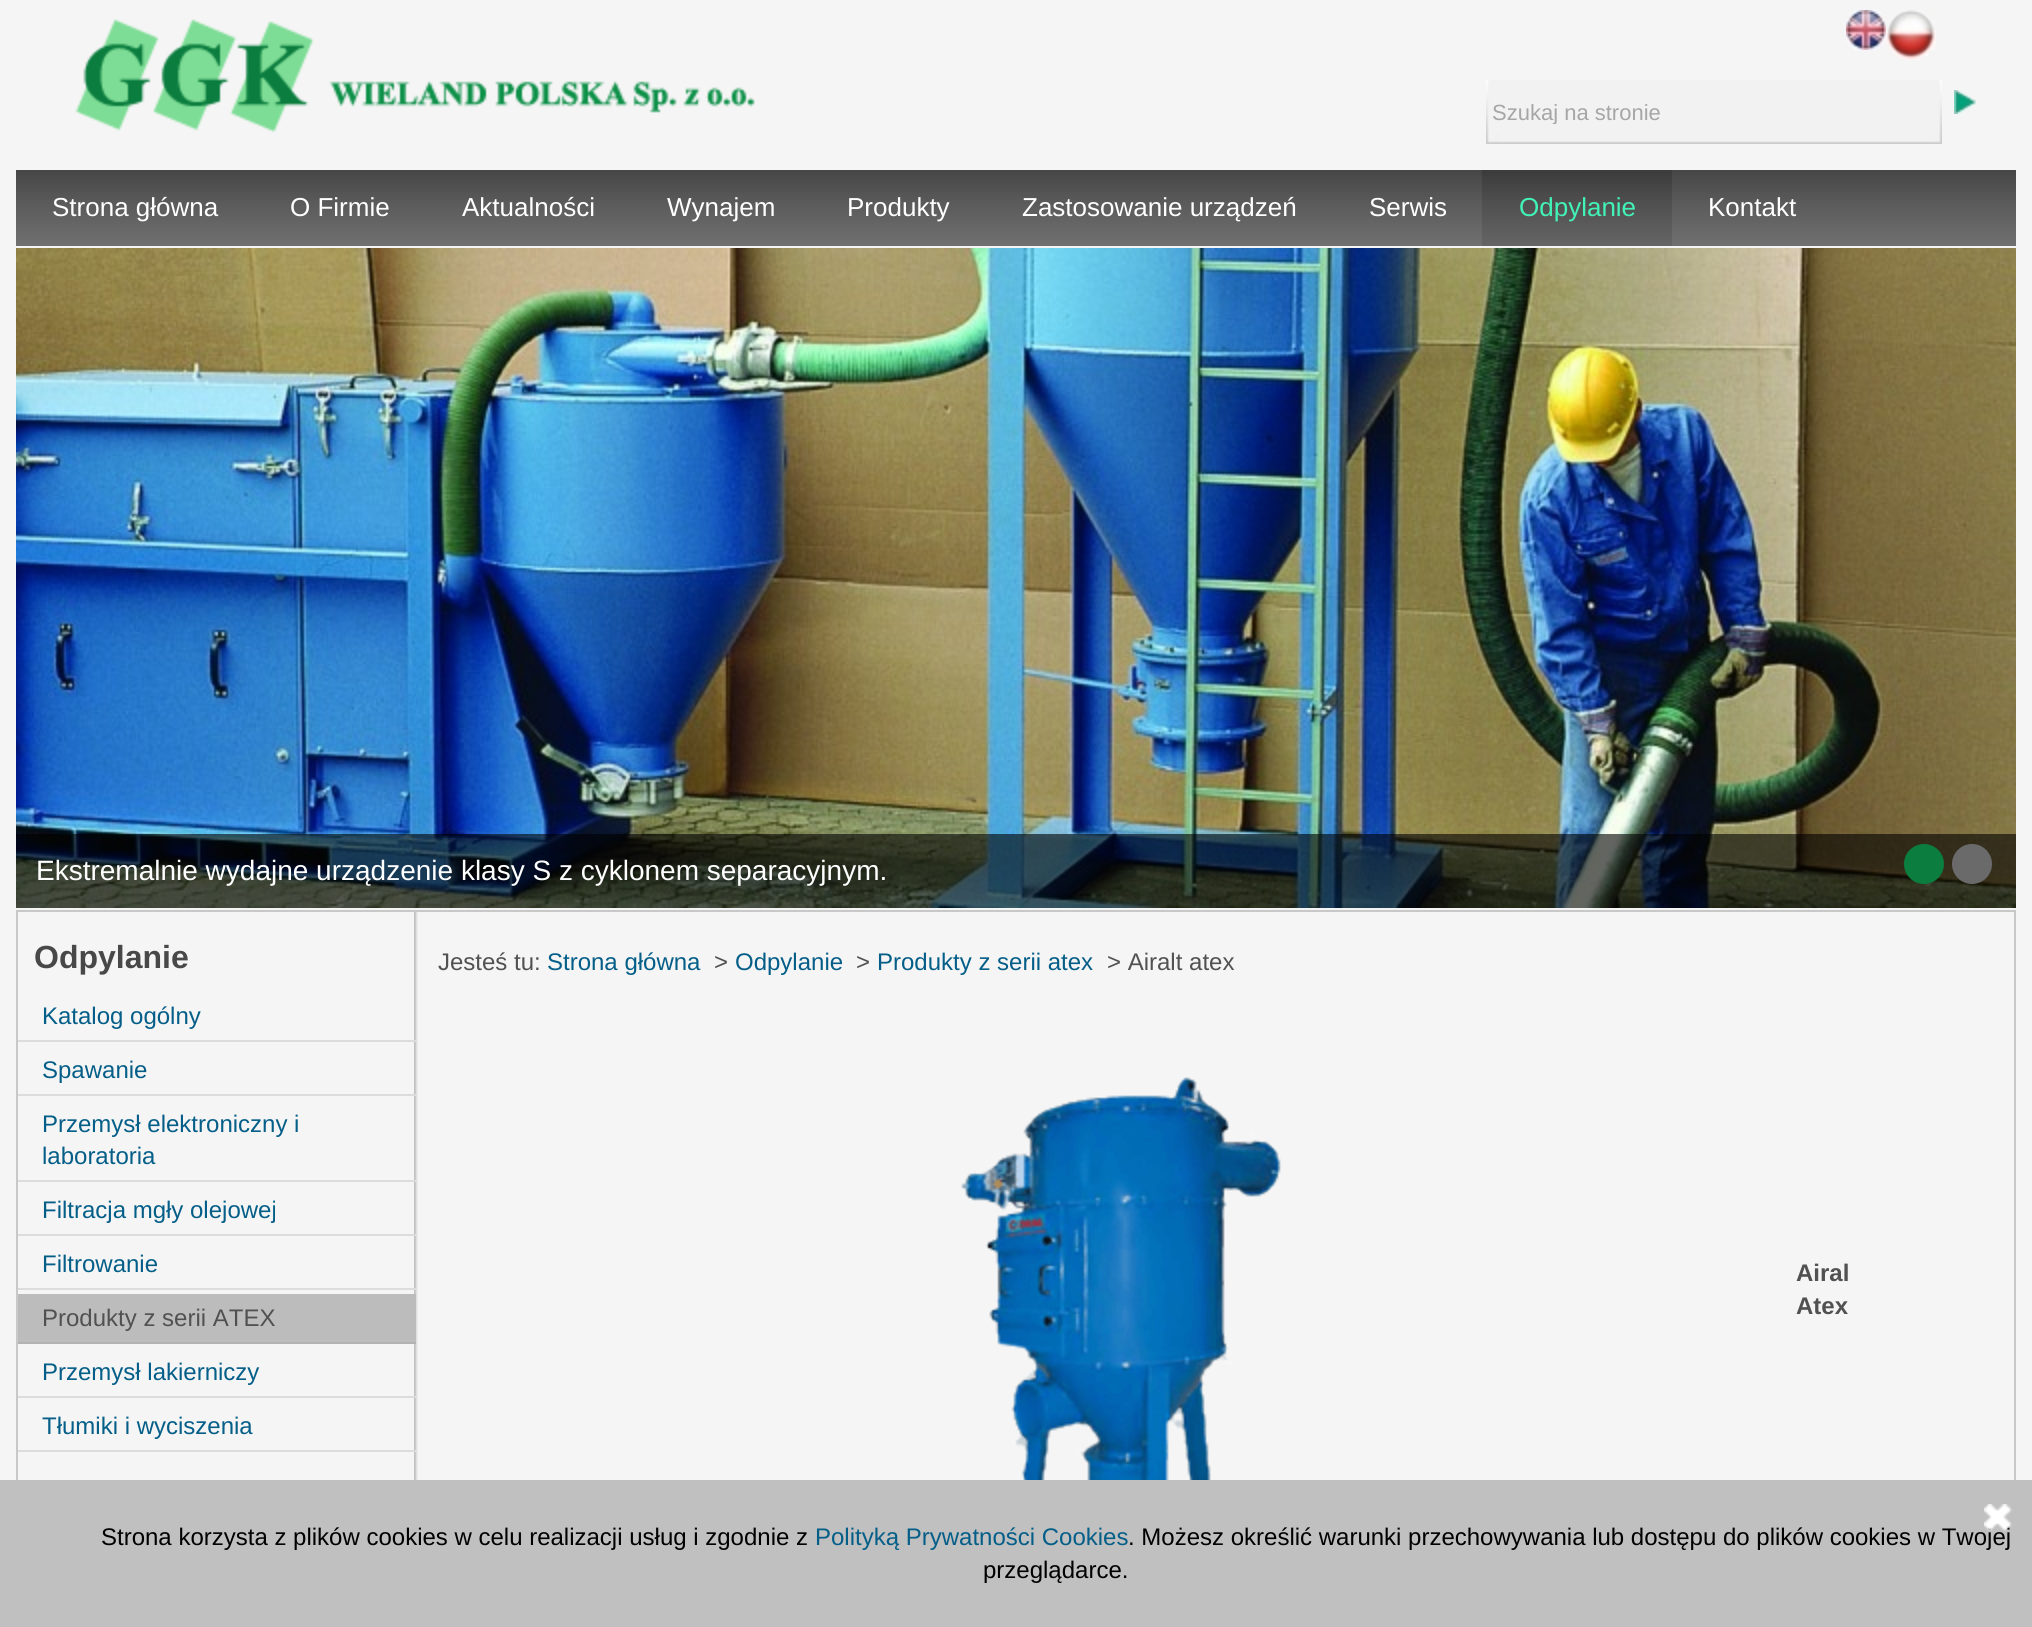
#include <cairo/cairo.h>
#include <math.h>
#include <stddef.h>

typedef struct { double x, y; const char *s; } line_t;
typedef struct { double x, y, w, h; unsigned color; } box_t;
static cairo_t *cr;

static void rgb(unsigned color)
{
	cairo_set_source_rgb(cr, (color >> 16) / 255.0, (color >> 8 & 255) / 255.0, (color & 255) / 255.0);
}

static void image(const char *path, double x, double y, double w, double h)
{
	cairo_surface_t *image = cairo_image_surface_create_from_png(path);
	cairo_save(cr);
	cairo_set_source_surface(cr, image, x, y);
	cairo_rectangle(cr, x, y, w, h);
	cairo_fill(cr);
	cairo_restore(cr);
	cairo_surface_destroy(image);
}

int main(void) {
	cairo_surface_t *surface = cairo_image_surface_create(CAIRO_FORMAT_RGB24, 2032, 1627);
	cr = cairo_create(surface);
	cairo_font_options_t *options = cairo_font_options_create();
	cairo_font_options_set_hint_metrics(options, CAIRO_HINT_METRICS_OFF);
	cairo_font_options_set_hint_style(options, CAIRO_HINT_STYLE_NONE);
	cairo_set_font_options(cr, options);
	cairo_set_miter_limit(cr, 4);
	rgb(0xf5f5f5);
	cairo_paint(cr);
	image("img/1.png", 75, 19, 680, 114);
	image("img/2.png", 1846, 10, 40, 40);
	image("img/3.png", 1886, 10, 50, 50);
	image("img/4.png", 1486, 80, 456, 64);
	image("img/5.png", 1954, 90, 22, 24);
	image("img/6.png", 16, 170, 2000, 76);
	image("img/7.png", 1482, 170, 190, 76);
	image("img/8.png", 16, 248, 2000, 660);
	cairo_set_source_rgba(cr, 0, 0, 0, 0.6);
	cairo_rectangle(cr, 16, 834, 2000, 74);
	cairo_fill(cr);
	rgb(0x0b7d3e);
	cairo_arc(cr, 1924, 864, 20, 0, 2 * M_PI);
	cairo_fill(cr);
	rgb(0x6a6a6a);
	cairo_arc(cr, 1972, 864, 20, 0, 2 * M_PI);
	cairo_fill(cr);
	cairo_rectangle(cr, 17, 911, 1998, 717);
	rgb(0xc8c8c8);
	cairo_stroke(cr);
	image("img/9.png", 414, 912, 4, 568);
	{
		static const box_t items[] = {
			{18, 1040, 398, 2, 0xdcdcdc},
			{18, 1094, 398, 2, 0xdcdcdc},
			{18, 1180, 398, 2, 0xdcdcdc},
			{18, 1234, 398, 2, 0xdcdcdc},
			{18, 1288, 398, 2, 0xdcdcdc},
			{18, 1294, 398, 48, 0xbcbcbc},
			{18, 1342, 398, 2, 0xb2b2b2},
			{18, 1396, 398, 2, 0xdcdcdc},
			{18, 1450, 398, 2, 0xdcdcdc},
		};
		for (size_t i = 0; i < sizeof items / sizeof *items; i++) {
			rgb(items[i].color);
			cairo_rectangle(cr, items[i].x, items[i].y, items[i].w, items[i].h);
			cairo_fill(cr);
		}
	}
	image("img/10.png", 961, 1077, 320, 403);
	rgb(0xc0c0c0);
	cairo_rectangle(cr, 0, 1480, 2032, 147);
	cairo_fill(cr);
	cairo_save(cr);
	cairo_rectangle(cr, 1492, 100, 456, 24);
	cairo_clip(cr);
	cairo_select_font_face(cr, "Liberation Sans", CAIRO_FONT_SLANT_NORMAL, CAIRO_FONT_WEIGHT_NORMAL);
	cairo_set_font_size(cr, 22);
	rgb(0xa6a6a6);
	cairo_move_to(cr, 1492, 120);
	cairo_show_text(cr, "Szukaj na stronie");
	cairo_restore(cr);
	cairo_select_font_face(cr, "Liberation Sans", CAIRO_FONT_SLANT_NORMAL, CAIRO_FONT_WEIGHT_NORMAL);
	cairo_set_font_size(cr, 26);
	rgb(0xffffff);
	{
		static const line_t items[] = {
			{52, 216, "Strona główna"},
			{290, 216, "O Firmie"},
			{462, 216, "Aktualności"},
			{667, 216, "Wynajem"},
			{847, 216, "Produkty"},
			{1022, 216, "Zastosowanie urządzeń"},
			{1369, 216, "Serwis"},
		};
		for (size_t i = 0; i < sizeof items / sizeof *items; i++) {
			cairo_move_to(cr, items[i].x, items[i].y);
			cairo_show_text(cr, items[i].s);
		}
	}
	rgb(0x41f3b6);
	cairo_move_to(cr, 1519, 216);
	cairo_show_text(cr, "Odpylanie");
	rgb(0xffffff);
	cairo_move_to(cr, 1708, 216);
	cairo_show_text(cr, "Kontakt");
	cairo_set_font_size(cr, 28);
	cairo_move_to(cr, 36, 880);
	cairo_show_text(cr, "Ekstremalnie wydajne urządzenie klasy S z cyklonem separacyjnym.");
	cairo_select_font_face(cr, "Liberation Sans", CAIRO_FONT_SLANT_NORMAL, CAIRO_FONT_WEIGHT_BOLD);
	cairo_set_font_size(cr, 32);
	rgb(0x484848);
	cairo_move_to(cr, 34, 968);
	cairo_show_text(cr, "Odpylanie");
	cairo_select_font_face(cr, "Liberation Sans", CAIRO_FONT_SLANT_NORMAL, CAIRO_FONT_WEIGHT_NORMAL);
	cairo_set_font_size(cr, 24);
	rgb(0x045e88);
	{
		static const line_t items[] = {
			{42, 1024, "Katalog ogólny"},
			{42, 1078, "Spawanie"},
			{42, 1132, "Przemysł elektroniczny i"},
			{42, 1164, "laboratoria"},
			{42, 1218, "Filtracja mgły olejowej"},
			{42, 1272, "Filtrowanie"},
		};
		for (size_t i = 0; i < sizeof items / sizeof *items; i++) {
			cairo_move_to(cr, items[i].x, items[i].y);
			cairo_show_text(cr, items[i].s);
		}
	}
	rgb(0x515151);
	cairo_move_to(cr, 42, 1326);
	cairo_show_text(cr, "Produkty z serii ATEX");
	rgb(0x045e88);
	cairo_move_to(cr, 42, 1380);
	cairo_show_text(cr, "Przemysł lakierniczy");
	cairo_move_to(cr, 42, 1434);
	cairo_show_text(cr, "Tłumiki i wyciszenia");
	rgb(0x515151);
	cairo_move_to(cr, 438, 970);
	cairo_show_text(cr, "Jesteś tu:");
	rgb(0x045e88);
	cairo_move_to(cr, 547, 970);
	cairo_show_text(cr, "Strona główna");
	rgb(0x515151);
	cairo_move_to(cr, 714, 970);
	cairo_show_text(cr, ">");
	rgb(0x045e88);
	cairo_move_to(cr, 735, 970);
	cairo_show_text(cr, "Odpylanie");
	rgb(0x515151);
	cairo_move_to(cr, 856, 970);
	cairo_show_text(cr, ">");
	rgb(0x045e88);
	cairo_move_to(cr, 877, 970);
	cairo_show_text(cr, "Produkty z serii atex");
	rgb(0x515151);
	cairo_move_to(cr, 1107, 970);
	cairo_show_text(cr, "> Airalt atex");
	cairo_select_font_face(cr, "Liberation Sans", CAIRO_FONT_SLANT_NORMAL, CAIRO_FONT_WEIGHT_BOLD);
	cairo_move_to(cr, 1796, 1281);
	cairo_show_text(cr, "Airal");
	cairo_move_to(cr, 1796, 1314);
	cairo_show_text(cr, "Atex");
	cairo_select_font_face(cr, "Liberation Sans", CAIRO_FONT_SLANT_NORMAL, CAIRO_FONT_WEIGHT_NORMAL);
	rgb(0x000000);
	cairo_move_to(cr, 101, 1545);
	cairo_show_text(cr, "Strona korzysta z plików cookies w celu realizacji usług i zgodnie z");
	rgb(0x045e88);
	cairo_move_to(cr, 815, 1545);
	cairo_show_text(cr, "Polityką Prywatności Cookies");
	rgb(0x000000);
	cairo_move_to(cr, 1128, 1545);
	cairo_show_text(cr, ". Możesz określić warunki przechowywania lub dostępu do plików cookies w Twojej");
	image("img/11.png", 1984, 1504, 28, 27);
	cairo_move_to(cr, 983, 1578);
	cairo_show_text(cr, "przeglądarce.");
	cairo_surface_write_to_png(surface, "page.png");
	cairo_font_options_destroy(options);
	cairo_destroy(cr);
	cairo_surface_destroy(surface);
	return 0;
}
